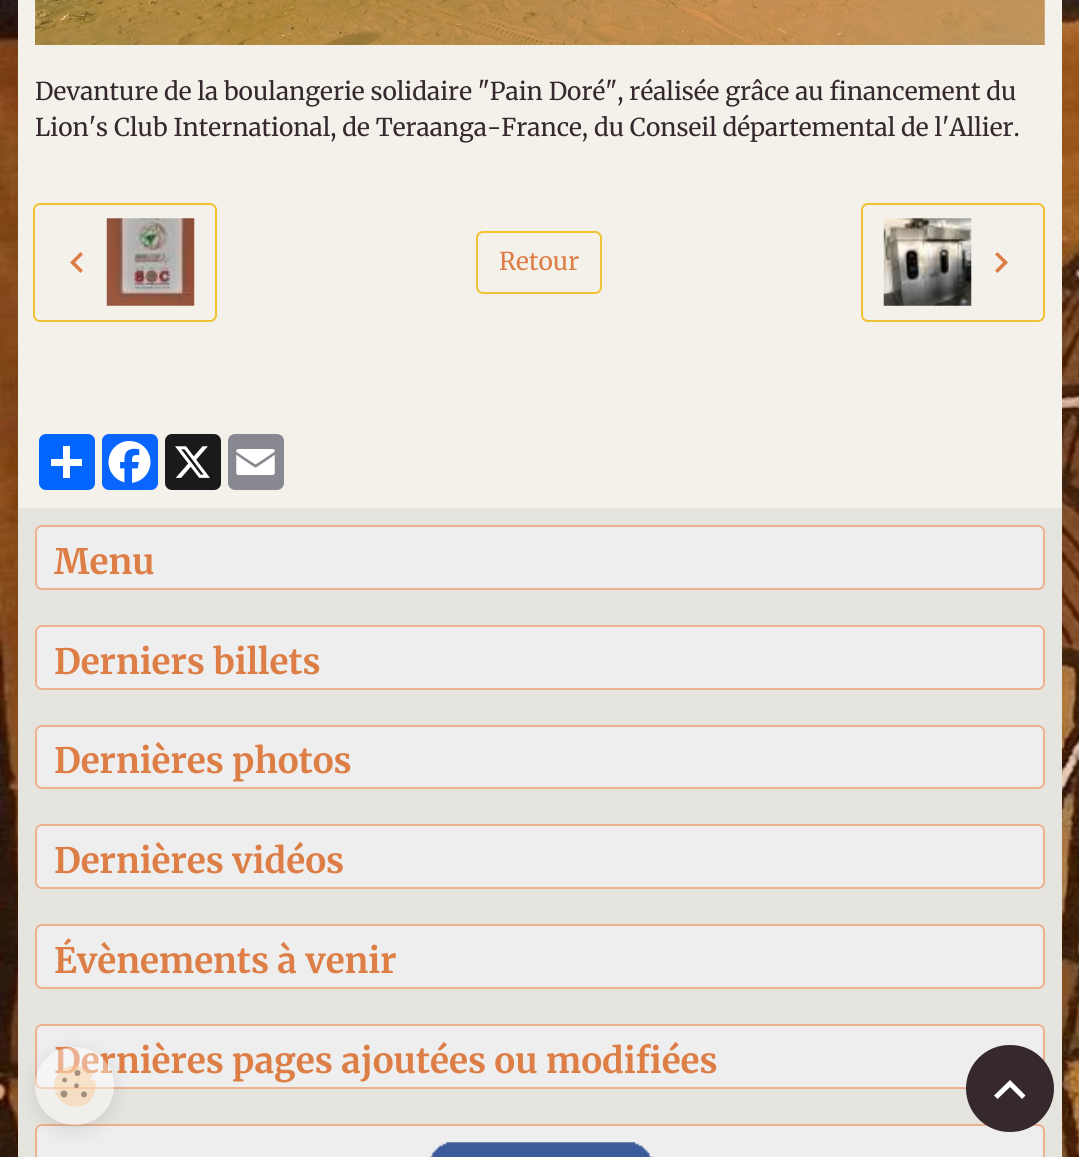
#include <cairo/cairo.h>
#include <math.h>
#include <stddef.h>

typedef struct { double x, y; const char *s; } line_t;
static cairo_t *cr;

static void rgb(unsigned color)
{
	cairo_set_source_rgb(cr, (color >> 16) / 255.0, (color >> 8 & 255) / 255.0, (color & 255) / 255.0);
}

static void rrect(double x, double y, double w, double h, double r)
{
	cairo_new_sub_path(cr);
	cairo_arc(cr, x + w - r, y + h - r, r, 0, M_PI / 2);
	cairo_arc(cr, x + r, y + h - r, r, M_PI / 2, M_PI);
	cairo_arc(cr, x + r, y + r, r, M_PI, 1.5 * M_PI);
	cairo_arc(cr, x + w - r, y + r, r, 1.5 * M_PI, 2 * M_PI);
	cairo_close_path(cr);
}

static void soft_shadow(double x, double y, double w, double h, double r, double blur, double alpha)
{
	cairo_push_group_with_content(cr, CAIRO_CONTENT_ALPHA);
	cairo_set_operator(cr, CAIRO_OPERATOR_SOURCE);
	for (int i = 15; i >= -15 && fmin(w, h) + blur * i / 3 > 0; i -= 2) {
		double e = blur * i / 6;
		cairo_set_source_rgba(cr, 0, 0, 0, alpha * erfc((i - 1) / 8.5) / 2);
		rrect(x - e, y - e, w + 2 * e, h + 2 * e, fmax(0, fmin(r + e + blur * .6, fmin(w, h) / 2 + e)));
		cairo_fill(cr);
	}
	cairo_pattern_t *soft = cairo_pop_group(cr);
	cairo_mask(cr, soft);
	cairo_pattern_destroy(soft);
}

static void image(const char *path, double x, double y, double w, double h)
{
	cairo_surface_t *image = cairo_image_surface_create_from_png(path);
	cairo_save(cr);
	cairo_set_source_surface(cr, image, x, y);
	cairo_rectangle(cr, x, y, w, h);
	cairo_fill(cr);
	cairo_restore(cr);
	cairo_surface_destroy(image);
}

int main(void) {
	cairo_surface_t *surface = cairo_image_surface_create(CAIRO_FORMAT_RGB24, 1079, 1157);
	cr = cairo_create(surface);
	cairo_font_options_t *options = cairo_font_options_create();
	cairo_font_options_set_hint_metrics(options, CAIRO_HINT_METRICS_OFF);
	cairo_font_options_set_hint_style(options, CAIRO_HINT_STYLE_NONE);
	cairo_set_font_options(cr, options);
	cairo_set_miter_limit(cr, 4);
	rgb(0xffffff);
	cairo_paint(cr);
	image("img/1.png", 0, 0, 1079, 1157);
	rgb(0xf4f1ea);
	cairo_rectangle(cr, 18, 0, 1044, 508);
	cairo_fill(cr);
	image("img/2.png", 35, 0, 1010, 45);
	rrect(34, 204, 182, 117, 6);
	rgb(0xf1c232);
	cairo_stroke(cr);
	rgb(0xdd7e47);
	cairo_new_path(cr);
	cairo_move_to(cr, 83, 254.5);
	cairo_line_to(cr, 75, 262.5);
	cairo_line_to(cr, 83, 270.5);
	cairo_line_to(cr, 80.5, 273);
	cairo_line_to(cr, 70, 262.5);
	cairo_line_to(cr, 80.5, 252);
	cairo_close_path(cr);
	cairo_fill(cr);
	image("img/3.png", 106, 218, 89, 88);
	rrect(477, 232, 124, 61, 6);
	rgb(0xf1c232);
	cairo_stroke(cr);
	rrect(862, 204, 182, 117, 6);
	cairo_stroke(cr);
	image("img/4.png", 883, 218, 89, 88);
	rgb(0xdd7e47);
	cairo_new_path(cr);
	cairo_move_to(cr, 997.5, 252);
	cairo_line_to(cr, 1008, 262.5);
	cairo_line_to(cr, 997.5, 273);
	cairo_line_to(cr, 995, 270.5);
	cairo_line_to(cr, 1003, 262.5);
	cairo_line_to(cr, 995, 254.5);
	cairo_close_path(cr);
	cairo_fill(cr);
	rgb(0x0166ff);
	rrect(39, 434, 56, 56, 7);
	cairo_fill(cr);
	rgb(0xffffff);
	cairo_rectangle(cr, 63, 446, 7, 32);
	cairo_fill(cr);
	cairo_rectangle(cr, 51, 459, 31, 7);
	cairo_fill(cr);
	rgb(0x0866ff);
	rrect(102, 434, 56, 56, 7);
	cairo_fill(cr);
	image("img/5.png", 108, 441, 43, 42);
	rgb(0x1a1a1a);
	rrect(165, 434, 56, 56, 7);
	cairo_fill(cr);
	image("img/6.png", 175, 446, 35, 32);
	rgb(0x888990);
	rrect(228, 434, 56, 56, 7);
	cairo_fill(cr);
	image("img/7.png", 236, 449, 39, 26);
	rgb(0xe6e4de);
	cairo_rectangle(cr, 18, 508, 1044, 649);
	cairo_fill(cr);
	rgb(0xeeeeee);
	rrect(36, 526, 1008, 63, 6);
	cairo_fill_preserve(cr);
	rgb(0xecb290);
	cairo_stroke(cr);
	rgb(0xeeeeee);
	rrect(36, 626, 1008, 63, 6);
	cairo_fill_preserve(cr);
	rgb(0xecb290);
	cairo_stroke(cr);
	rgb(0xeeeeee);
	rrect(36, 726, 1008, 62, 6);
	cairo_fill_preserve(cr);
	rgb(0xecb290);
	cairo_stroke(cr);
	rgb(0xeeeeee);
	rrect(36, 825, 1008, 63, 6);
	cairo_fill_preserve(cr);
	rgb(0xecb290);
	cairo_stroke(cr);
	rgb(0xeeeeee);
	rrect(36, 925, 1008, 63, 6);
	cairo_fill_preserve(cr);
	rgb(0xecb290);
	cairo_stroke(cr);
	rgb(0xeeeeee);
	rrect(36, 1025, 1008, 63, 6);
	cairo_fill_preserve(cr);
	rgb(0xecb290);
	cairo_stroke(cr);
	rgb(0xeeeeee);
	rrect(36, 1125, 1008, 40, 6);
	cairo_fill_preserve(cr);
	rgb(0xecb290);
	cairo_stroke(cr);
	image("img/8.png", 430, 1142, 222, 15);
	cairo_save(cr);
	cairo_set_fill_rule(cr, CAIRO_FILL_RULE_EVEN_ODD);
	cairo_new_path(cr);
	cairo_move_to(cr, 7, 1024);
	cairo_line_to(cr, 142, 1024);
	cairo_line_to(cr, 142, 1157);
	cairo_line_to(cr, 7, 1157);
	cairo_close_path(cr);
	cairo_move_to(cr, 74, 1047);
	cairo_line_to(cr, 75, 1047);
	cairo_curve_to(cr, 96.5, 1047, 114, 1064.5, 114, 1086);
	cairo_curve_to(cr, 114, 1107.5, 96.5, 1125, 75, 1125);
	cairo_line_to(cr, 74, 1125);
	cairo_curve_to(cr, 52.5, 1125, 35, 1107.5, 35, 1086);
	cairo_curve_to(cr, 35, 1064.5, 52.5, 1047, 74, 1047);
	cairo_close_path(cr);
	cairo_clip(cr);
	rgb(0x000000);
	soft_shadow(35, 1052, 79, 79, 39.5, 9, 0.1);
	cairo_restore(cr);
	rgb(0x35292e);
	rrect(966, 1045, 88, 87, 43.5);
	cairo_fill(cr);
	rgb(0xffffff);
	cairo_new_path(cr);
	cairo_move_to(cr, 1010, 1080);
	cairo_line_to(cr, 1025.5, 1095.5);
	cairo_line_to(cr, 1022, 1099);
	cairo_line_to(cr, 1010, 1087);
	cairo_line_to(cr, 997.5, 1099);
	cairo_line_to(cr, 994, 1095.5);
	cairo_close_path(cr);
	cairo_fill(cr);
	cairo_select_font_face(cr, "Merriweather", CAIRO_FONT_SLANT_NORMAL, CAIRO_FONT_WEIGHT_NORMAL);
	cairo_set_font_size(cr, 24.5);
	rgb(0x35292e);
	cairo_move_to(cr, 35, 100);
	cairo_show_text(cr, "Devanture de la boulangerie solidaire \"Pain Doré\", réalisée grâce au financement du");
	cairo_move_to(cr, 35, 136);
	cairo_show_text(cr, "Lion's Club International, de Teraanga-France, du Conseil départemental de l'Allier.");
	rgb(0xdd7e47);
	cairo_move_to(cr, 499, 270);
	cairo_show_text(cr, "Retour");
	cairo_select_font_face(cr, "Merriweather", CAIRO_FONT_SLANT_NORMAL, CAIRO_FONT_WEIGHT_BOLD);
	cairo_set_font_size(cr, 35);
	{
		static const line_t items[] = {
			{54, 574, "Menu"},
			{54, 674, "Derniers billets"},
			{54, 773, "Dernières photos"},
			{54, 873, "Dernières vidéos"},
			{54, 973, "Évènements à venir"},
			{54, 1073, "Dernières pages ajoutées ou modifiées"},
		};
		for (size_t i = 0; i < sizeof items / sizeof *items; i++) {
			cairo_move_to(cr, items[i].x, items[i].y);
			cairo_show_text(cr, items[i].s);
		}
	}
	cairo_set_source_rgba(cr, 1, 1, 1, 0.4);
	rrect(35, 1047, 79, 78, 39);
	cairo_fill(cr);
	image("img/9.png", 54, 1065, 42, 42);
	cairo_surface_write_to_png(surface, "page.png");
	cairo_font_options_destroy(options);
	cairo_destroy(cr);
	cairo_surface_destroy(surface);
	return 0;
}
